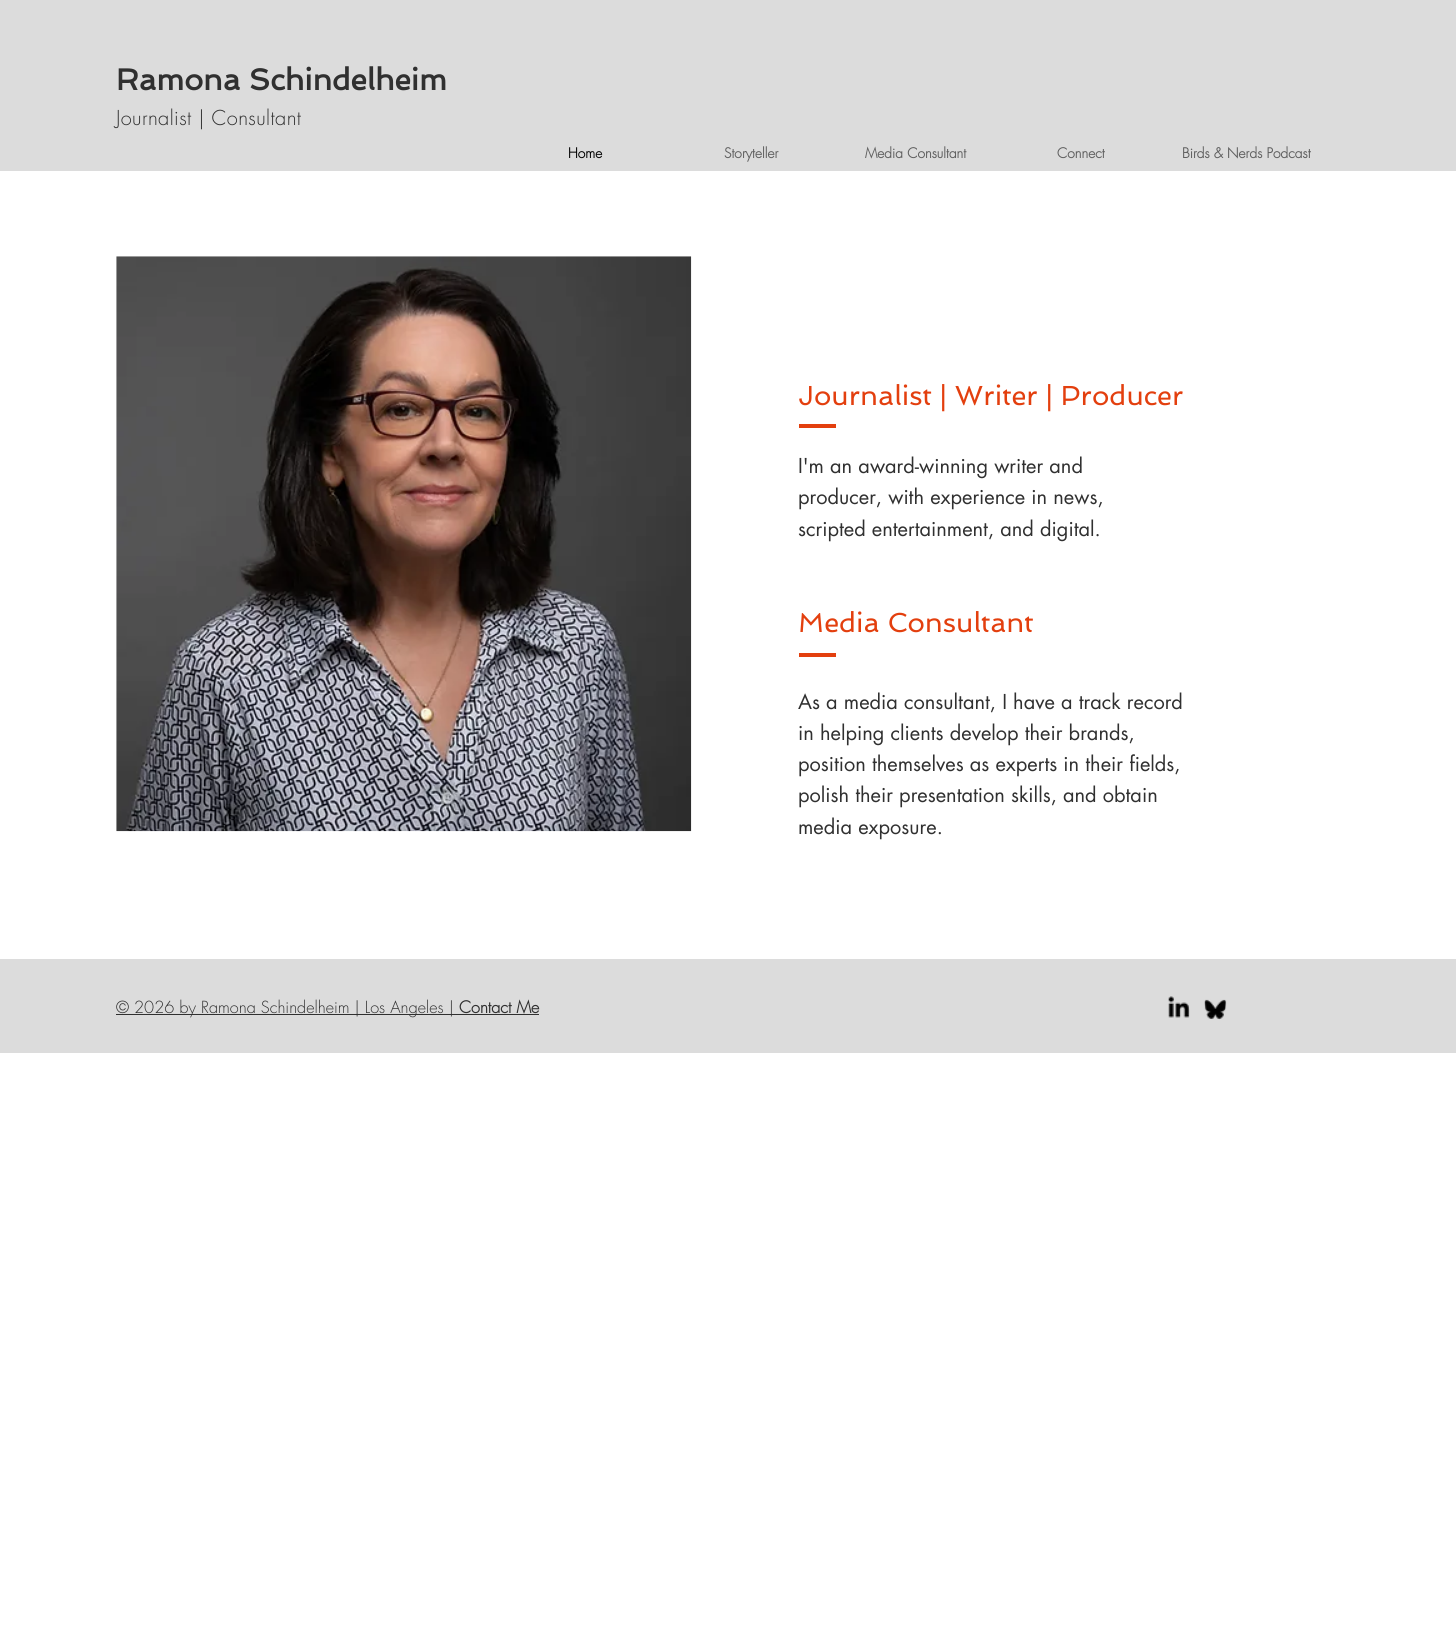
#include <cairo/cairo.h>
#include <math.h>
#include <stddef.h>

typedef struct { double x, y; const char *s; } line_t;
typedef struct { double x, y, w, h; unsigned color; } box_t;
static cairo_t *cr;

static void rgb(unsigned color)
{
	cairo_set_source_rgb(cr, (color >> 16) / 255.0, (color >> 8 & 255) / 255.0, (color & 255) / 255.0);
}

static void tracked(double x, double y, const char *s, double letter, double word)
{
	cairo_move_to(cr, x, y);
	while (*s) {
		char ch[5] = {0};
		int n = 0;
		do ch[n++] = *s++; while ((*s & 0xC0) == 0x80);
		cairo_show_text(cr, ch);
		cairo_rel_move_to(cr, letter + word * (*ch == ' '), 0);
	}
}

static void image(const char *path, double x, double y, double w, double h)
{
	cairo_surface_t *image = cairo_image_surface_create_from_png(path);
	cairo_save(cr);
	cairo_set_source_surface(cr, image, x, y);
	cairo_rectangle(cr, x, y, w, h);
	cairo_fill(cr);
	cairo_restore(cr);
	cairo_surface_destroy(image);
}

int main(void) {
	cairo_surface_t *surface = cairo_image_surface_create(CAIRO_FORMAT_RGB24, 1456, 1636);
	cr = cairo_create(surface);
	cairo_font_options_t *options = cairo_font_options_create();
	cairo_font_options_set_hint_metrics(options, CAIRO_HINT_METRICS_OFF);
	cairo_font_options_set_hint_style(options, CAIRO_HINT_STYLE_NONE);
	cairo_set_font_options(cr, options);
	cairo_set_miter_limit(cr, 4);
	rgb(0xffffff);
	cairo_paint(cr);
	rgb(0xdcdcdc);
	cairo_rectangle(cr, 0, 0, 1456, 171);
	cairo_fill(cr);
	image("img/1.png", 116, 256, 576, 576);
	{
		static const box_t items[] = {
			{799, 424, 37, 4, 0xe33f0e},
			{799, 653, 37, 4, 0xe33f0e},
			{0, 959, 1456, 94, 0xdcdcdc},
			{116, 1014, 423, 1, 0x303030},
		};
		for (size_t i = 0; i < sizeof items / sizeof *items; i++) {
			rgb(items[i].color);
			cairo_rectangle(cr, items[i].x, items[i].y, items[i].w, items[i].h);
			cairo_fill(cr);
		}
	}
	image("img/2.png", 1168, 996, 22, 22);
	image("img/3.png", 1204, 999, 23, 21);
	cairo_select_font_face(cr, "Spinnaker", CAIRO_FONT_SLANT_NORMAL, CAIRO_FONT_WEIGHT_BOLD);
	cairo_set_font_size(cr, 30);
	cairo_move_to(cr, 116, 90);
	cairo_show_text(cr, "Ramona Schindelheim");
	cairo_select_font_face(cr, "futura Light", CAIRO_FONT_SLANT_NORMAL, CAIRO_FONT_WEIGHT_NORMAL);
	cairo_set_font_size(cr, 20);
	tracked(116, 125, "Journalist | Consultant", 0.4, 0);
	cairo_select_font_face(cr, "futura", CAIRO_FONT_SLANT_NORMAL, CAIRO_FONT_WEIGHT_BOLD);
	cairo_set_font_size(cr, 13.75);
	rgb(0x000000);
	cairo_move_to(cr, 568, 158);
	cairo_show_text(cr, "Home");
	rgb(0x5f5f5f);
	{
		static const line_t items[] = {
			{724, 158, "Storyteller"},
			{865, 158, "Media Consultant"},
			{1057, 158, "Connect"},
			{1182, 158, "Birds & Nerds Podcast"},
		};
		for (size_t i = 0; i < sizeof items / sizeof *items; i++) {
			cairo_move_to(cr, items[i].x, items[i].y);
			cairo_show_text(cr, items[i].s);
		}
	}
	cairo_select_font_face(cr, "Spinnaker", CAIRO_FONT_SLANT_NORMAL, CAIRO_FONT_WEIGHT_NORMAL);
	cairo_set_font_size(cr, 27.5);
	rgb(0xe33f0e);
	cairo_move_to(cr, 798, 405);
	cairo_show_text(cr, "Journalist | Writer | Producer");
	cairo_select_font_face(cr, "futura", CAIRO_FONT_SLANT_NORMAL, CAIRO_FONT_WEIGHT_NORMAL);
	cairo_set_font_size(cr, 20);
	rgb(0x303030);
	{
		static const line_t items[] = {
			{798, 473, "I'm an award-winning writer and"},
			{798, 504, "producer, with experience in news,"},
			{798, 536, "scripted entertainment, and digital."},
		};
		for (size_t i = 0; i < sizeof items / sizeof *items; i++) {
			cairo_move_to(cr, items[i].x, items[i].y);
			cairo_show_text(cr, items[i].s);
		}
	}
	cairo_select_font_face(cr, "Spinnaker", CAIRO_FONT_SLANT_NORMAL, CAIRO_FONT_WEIGHT_NORMAL);
	cairo_set_font_size(cr, 27.5);
	rgb(0xe33f0e);
	cairo_move_to(cr, 798, 632);
	cairo_show_text(cr, "Media Consultant");
	cairo_select_font_face(cr, "futura", CAIRO_FONT_SLANT_NORMAL, CAIRO_FONT_WEIGHT_NORMAL);
	cairo_set_font_size(cr, 20);
	rgb(0x303030);
	{
		static const line_t items[] = {
			{798, 709, "As a media consultant, I have a track record"},
			{798, 740, "in helping clients develop their brands,"},
			{798, 771, "position themselves as experts in their fields,"},
			{798, 802, "polish their presentation skills, and obtain"},
			{798, 834, "media exposure."},
		};
		for (size_t i = 0; i < sizeof items / sizeof *items; i++) {
			cairo_move_to(cr, items[i].x, items[i].y);
			cairo_show_text(cr, items[i].s);
		}
	}
	cairo_select_font_face(cr, "futura Light", CAIRO_FONT_SLANT_NORMAL, CAIRO_FONT_WEIGHT_NORMAL);
	cairo_set_font_size(cr, 16.25);
	cairo_move_to(cr, 116, 1013);
	cairo_show_text(cr, "© 2026 by Ramona Schindelheim | Los Angeles |");
	cairo_select_font_face(cr, "futura", CAIRO_FONT_SLANT_NORMAL, CAIRO_FONT_WEIGHT_BOLD);
	cairo_move_to(cr, 459, 1013);
	cairo_show_text(cr, "Contact Me");
	cairo_surface_write_to_png(surface, "page.png");
	cairo_font_options_destroy(options);
	cairo_destroy(cr);
	cairo_surface_destroy(surface);
	return 0;
}
